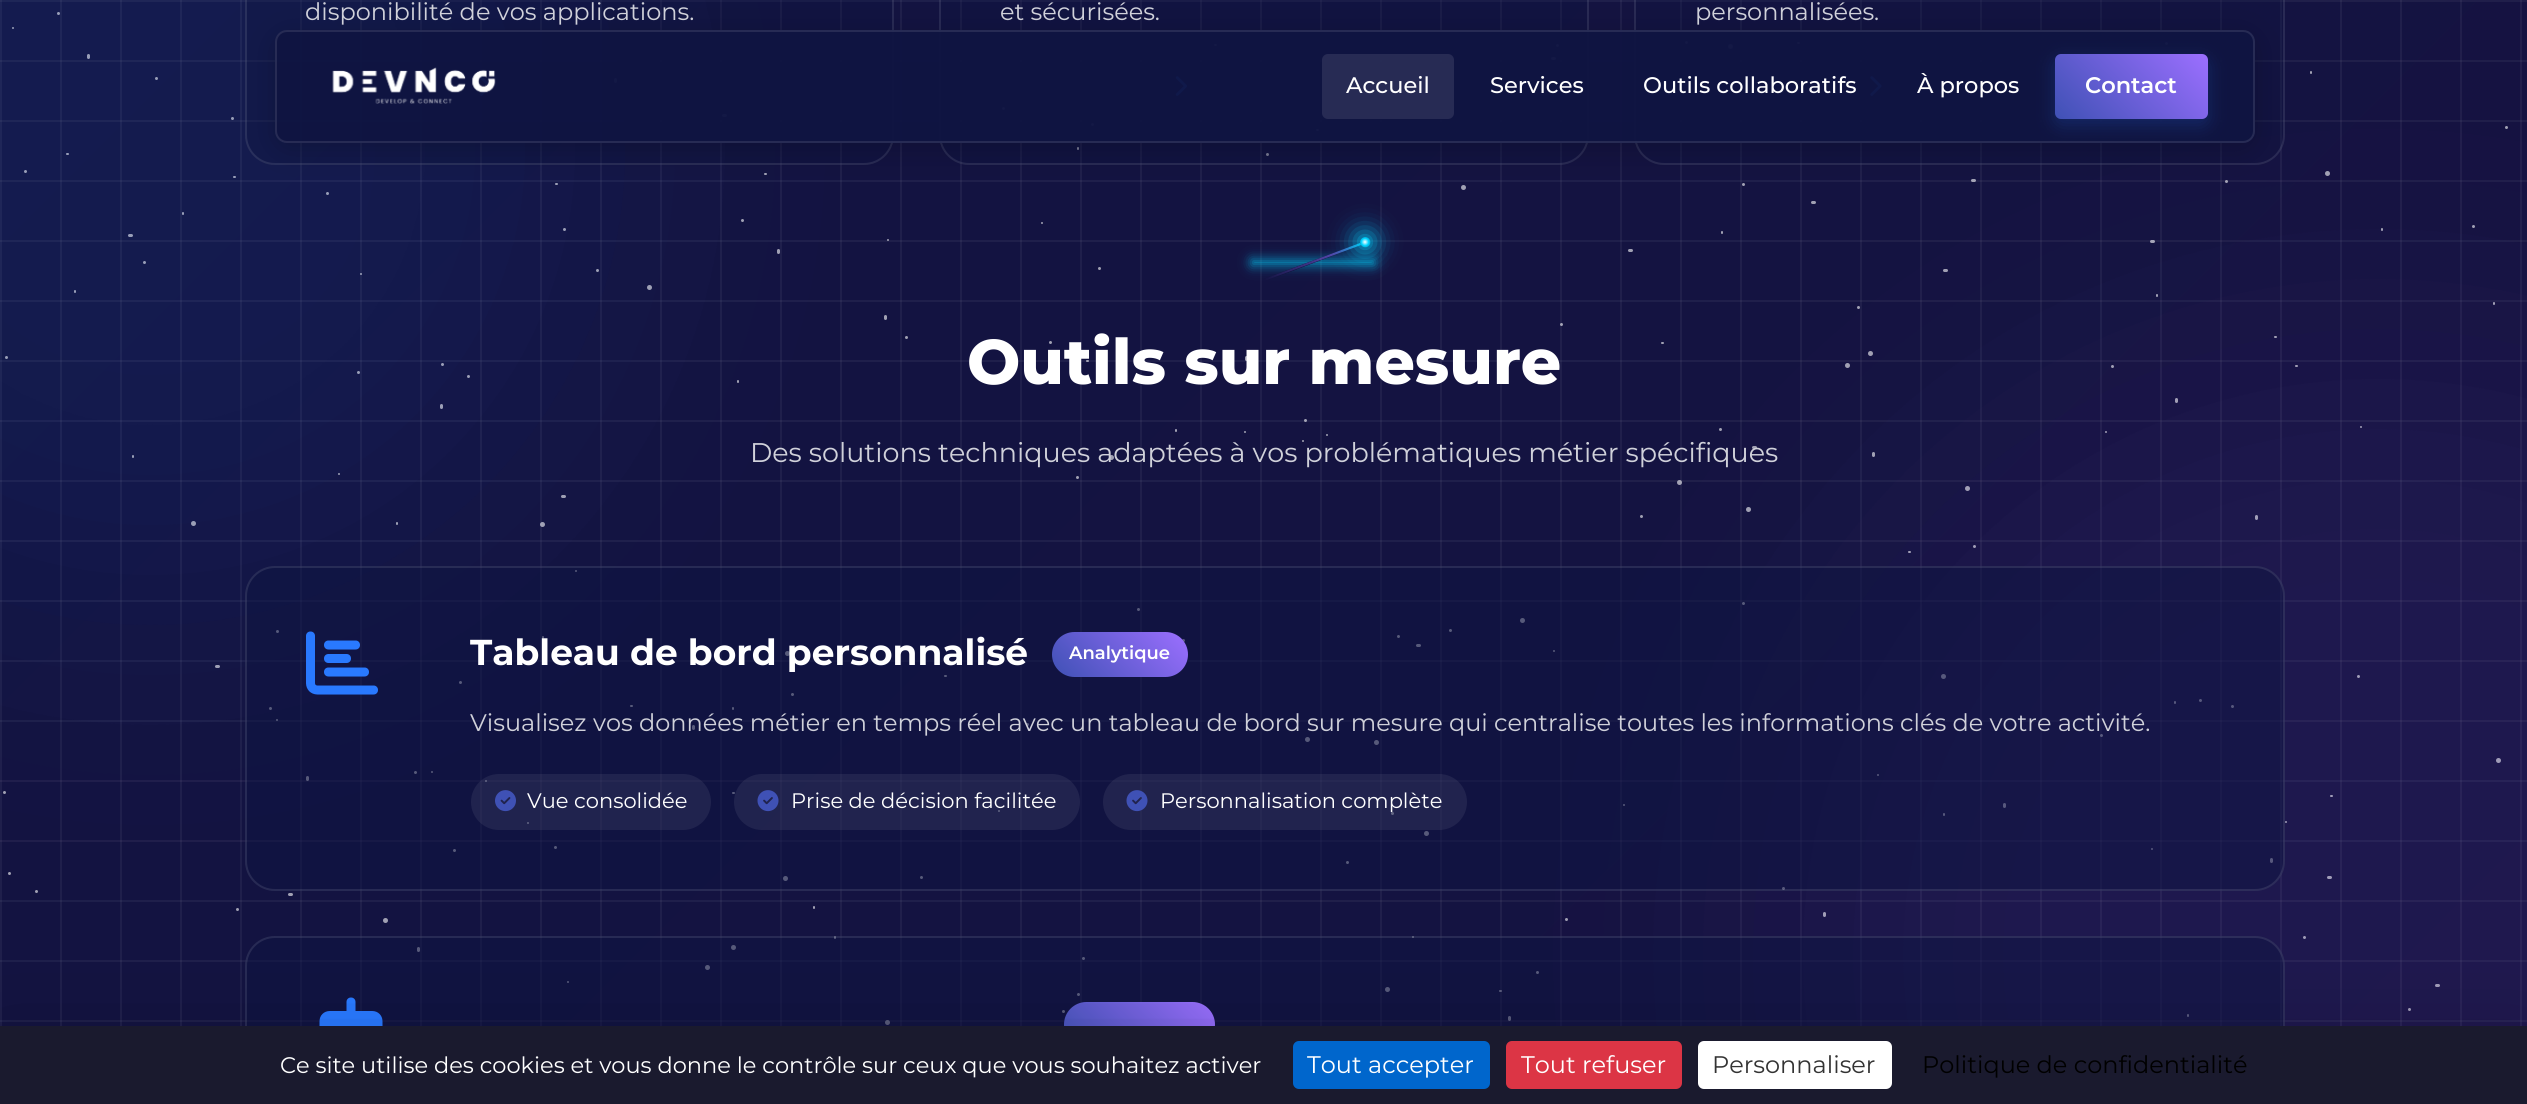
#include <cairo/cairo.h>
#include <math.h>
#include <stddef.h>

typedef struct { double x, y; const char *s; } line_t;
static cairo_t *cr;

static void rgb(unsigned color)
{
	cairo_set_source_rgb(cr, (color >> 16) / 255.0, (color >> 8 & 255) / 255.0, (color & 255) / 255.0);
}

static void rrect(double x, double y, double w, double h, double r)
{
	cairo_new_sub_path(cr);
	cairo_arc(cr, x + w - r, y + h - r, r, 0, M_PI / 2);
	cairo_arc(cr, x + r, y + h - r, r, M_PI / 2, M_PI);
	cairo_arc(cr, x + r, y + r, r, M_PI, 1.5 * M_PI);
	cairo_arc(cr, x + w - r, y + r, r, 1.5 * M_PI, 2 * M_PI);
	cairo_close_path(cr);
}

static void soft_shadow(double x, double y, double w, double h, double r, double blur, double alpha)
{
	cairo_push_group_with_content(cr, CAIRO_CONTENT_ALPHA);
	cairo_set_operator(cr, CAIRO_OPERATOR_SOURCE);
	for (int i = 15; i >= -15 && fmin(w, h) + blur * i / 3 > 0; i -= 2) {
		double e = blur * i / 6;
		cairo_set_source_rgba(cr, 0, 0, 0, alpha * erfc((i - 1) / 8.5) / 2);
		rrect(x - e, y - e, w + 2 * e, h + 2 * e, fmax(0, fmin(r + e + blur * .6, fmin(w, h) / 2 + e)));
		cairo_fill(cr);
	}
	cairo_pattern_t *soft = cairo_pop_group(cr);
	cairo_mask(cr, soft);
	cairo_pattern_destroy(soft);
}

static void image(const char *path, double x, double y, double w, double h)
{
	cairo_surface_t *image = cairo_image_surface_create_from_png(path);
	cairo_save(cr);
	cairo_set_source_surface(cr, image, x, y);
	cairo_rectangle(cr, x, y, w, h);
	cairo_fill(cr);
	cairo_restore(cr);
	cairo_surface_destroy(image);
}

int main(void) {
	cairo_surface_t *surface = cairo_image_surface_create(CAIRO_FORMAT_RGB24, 2527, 1104);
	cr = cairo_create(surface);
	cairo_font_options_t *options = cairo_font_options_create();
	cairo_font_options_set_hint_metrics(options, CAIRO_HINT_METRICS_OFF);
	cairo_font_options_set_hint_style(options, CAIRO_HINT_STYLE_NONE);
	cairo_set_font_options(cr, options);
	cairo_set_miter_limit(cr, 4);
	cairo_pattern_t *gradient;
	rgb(0xffffff);
	cairo_paint(cr);
	gradient = cairo_pattern_create_linear(-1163, -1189, 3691, 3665);
	cairo_pattern_add_color_stop_rgba(gradient, 0, 0.059, 0.082, 0.259, 1);
	cairo_pattern_add_color_stop_rgba(gradient, 1, 0.102, 0.063, 0.251, 1);
	cairo_set_source(cr, gradient);
	cairo_pattern_destroy(gradient);
	cairo_rectangle(cr, 0, 2, 2527, 1024);
	cairo_fill(cr);
	gradient = cairo_pattern_create_linear(-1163, -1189, 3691, 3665);
	cairo_pattern_add_color_stop_rgba(gradient, 0, 0.106, 0.129, 0.294, 1);
	cairo_pattern_add_color_stop_rgba(gradient, 1, 0.145, 0.11, 0.29, 1);
	cairo_set_source(cr, gradient);
	cairo_pattern_destroy(gradient);
	cairo_rectangle(cr, 0, 1020, 2527, 2);
	cairo_fill(cr);
	cairo_rectangle(cr, 0, 960, 2527, 2);
	cairo_fill(cr);
	cairo_rectangle(cr, 0, 900, 2527, 2);
	cairo_fill(cr);
	cairo_rectangle(cr, 0, 720, 2527, 2);
	cairo_fill(cr);
	cairo_rectangle(cr, 0, 660, 2527, 2);
	cairo_fill(cr);
	cairo_rectangle(cr, 0, 600, 2527, 2);
	cairo_fill(cr);
	cairo_rectangle(cr, 0, 540, 2527, 2);
	cairo_fill(cr);
	cairo_rectangle(cr, 0, 480, 2527, 2);
	cairo_fill(cr);
	cairo_rectangle(cr, 0, 420, 2527, 2);
	cairo_fill(cr);
	cairo_rectangle(cr, 0, 360, 2527, 2);
	cairo_fill(cr);
	cairo_rectangle(cr, 0, 300, 2527, 2);
	cairo_fill(cr);
	cairo_rectangle(cr, 0, 240, 2527, 2);
	cairo_fill(cr);
	cairo_rectangle(cr, 0, 180, 2527, 2);
	cairo_fill(cr);
	cairo_rectangle(cr, 0, 120, 2527, 2);
	cairo_fill(cr);
	cairo_rectangle(cr, 0, 60, 2527, 2);
	cairo_fill(cr);
	cairo_rectangle(cr, 0, 0, 2527, 2);
	cairo_fill(cr);
	rgb(0x201e4b);
	cairo_rectangle(cr, 0, 780, 2527, 2);
	cairo_fill(cr);
	cairo_rectangle(cr, 0, 840, 2527, 2);
	cairo_fill(cr);
	image("img/1.png", 0, 0, 2522, 1026);
	rgb(0xa0a1b3);
	cairo_arc(cr, 58.5, 13.5, 1.5, 0, 2 * M_PI);
	cairo_fill(cr);
	cairo_arc(cr, 13, 28, 1, 0, 2 * M_PI);
	cairo_fill(cr);
	rrect(87, 54, 3, 5, 1.5);
	cairo_fill(cr);
	cairo_arc(cr, 156.5, 78.5, 1.5, 0, 2 * M_PI);
	cairo_fill(cr);
	rrect(614, 78, 3, 5, 1.5);
	cairo_fill(cr);
	cairo_arc(cr, 385.5, 100.5, 2.5, 0, 2 * M_PI);
	cairo_fill(cr);
	rgb(0xa1a1b3);
	cairo_arc(cr, 1003.5, 108.5, 1.5, 0, 2 * M_PI);
	cairo_fill(cr);
	rrect(722, 114, 5, 3, 1.5);
	cairo_fill(cr);
	rgb(0xa0a1b3);
	cairo_arc(cr, 232.5, 118.5, 1.5, 0, 2 * M_PI);
	cairo_fill(cr);
	rrect(66, 153, 3, 2, 1);
	cairo_fill(cr);
	cairo_arc(cr, 25.5, 171.5, 1.5, 0, 2 * M_PI);
	cairo_fill(cr);
	rgb(0xa1a1b3);
	rrect(764, 173, 3, 2, 1);
	cairo_fill(cr);
	rgb(0xa0a1b3);
	rrect(233, 176, 3, 2, 1);
	cairo_fill(cr);
	rgb(0xa1a1b3);
	rrect(555, 183, 3, 2, 1);
	cairo_fill(cr);
	rgb(0xa0a1b3);
	cairo_arc(cr, 327.5, 193.5, 1.5, 0, 2 * M_PI);
	cairo_fill(cr);
	rrect(182, 212, 2, 3, 1);
	cairo_fill(cr);
	rgb(0xa1a1b3);
	cairo_arc(cr, 742.5, 220.5, 1.5, 0, 2 * M_PI);
	cairo_fill(cr);
	cairo_arc(cr, 1042, 223, 1, 0, 2 * M_PI);
	cairo_fill(cr);
	cairo_arc(cr, 564.5, 229.5, 1.5, 0, 2 * M_PI);
	cairo_fill(cr);
	rgb(0xa0a1b3);
	rrect(128, 234, 5, 3, 1.5);
	cairo_fill(cr);
	cairo_set_source_rgba(cr, 1, 1, 1, 0.6);
	cairo_arc(cr, 888, 240, 1, 0, 2 * M_PI);
	cairo_fill(cr);
	rgb(0xa1a1b3);
	rrect(777, 249, 3, 5, 1.5);
	cairo_fill(cr);
	rgb(0xa0a1b3);
	cairo_arc(cr, 144.5, 262.5, 1.5, 0, 2 * M_PI);
	cairo_fill(cr);
	rgb(0xa1a1b3);
	cairo_arc(cr, 597.5, 270.5, 1.5, 0, 2 * M_PI);
	cairo_fill(cr);
	rgb(0xa5a5b7);
	cairo_arc(cr, 361, 274, 1, 0, 2 * M_PI);
	cairo_fill(cr);
	rgb(0xa1a1b3);
	cairo_arc(cr, 649.5, 287.5, 2.5, 0, 2 * M_PI);
	cairo_fill(cr);
	rgb(0xa0a1b3);
	rrect(74, 290, 2, 3, 1);
	cairo_fill(cr);
	rgb(0xa1a1b3);
	rrect(884, 315, 3, 5, 1.5);
	cairo_fill(cr);
	cairo_arc(cr, 906.5, 337.5, 1.5, 0, 2 * M_PI);
	cairo_fill(cr);
	cairo_arc(cr, 1050.5, 342.5, 1.5, 0, 2 * M_PI);
	cairo_fill(cr);
	rgb(0xa0a1b3);
	cairo_arc(cr, 6.5, 357.5, 1.5, 0, 2 * M_PI);
	cairo_fill(cr);
	rgb(0xa1a1b3);
	cairo_arc(cr, 442.5, 364.5, 1.5, 0, 2 * M_PI);
	cairo_fill(cr);
	rgb(0xa0a1b3);
	cairo_arc(cr, 358.5, 372.5, 1.5, 0, 2 * M_PI);
	cairo_fill(cr);
	rgb(0xa1a1b3);
	cairo_arc(cr, 468.5, 376.5, 1.5, 0, 2 * M_PI);
	cairo_fill(cr);
	rrect(737, 380, 2, 3, 1);
	cairo_fill(cr);
	rrect(440, 404, 3, 5, 1.5);
	cairo_fill(cr);
	rgb(0xa0a1b3);
	rrect(132, 455, 2, 3, 1);
	cairo_fill(cr);
	rgb(0xa1a1b3);
	cairo_arc(cr, 339, 474, 1, 0, 2 * M_PI);
	cairo_fill(cr);
	rrect(561, 495, 5, 3, 1.5);
	cairo_fill(cr);
	rgb(0xa0a1b3);
	cairo_arc(cr, 193.5, 523.5, 2.5, 0, 2 * M_PI);
	cairo_fill(cr);
	rgb(0xa1a1b3);
	rrect(396, 522, 2, 3, 1);
	cairo_fill(cr);
	cairo_set_source_rgba(cr, 1, 1, 1, 0.6);
	cairo_arc(cr, 542.5, 524.5, 2.5, 0, 2 * M_PI);
	cairo_fill(cr);
	rgb(0xa1a1b3);
	cairo_arc(cr, 576, 571, 1, 0, 2 * M_PI);
	cairo_fill(cr);
	cairo_arc(cr, 277.5, 631.5, 1.5, 0, 2 * M_PI);
	cairo_fill(cr);
	rrect(542, 636, 2, 3, 1);
	cairo_fill(cr);
	cairo_arc(cr, 787.5, 653.5, 2.5, 0, 2 * M_PI);
	cairo_fill(cr);
	rrect(215, 665, 5, 3, 1.5);
	cairo_fill(cr);
	rrect(944, 675, 3, 2, 1);
	cairo_fill(cr);
	cairo_arc(cr, 460.5, 682.5, 1.5, 0, 2 * M_PI);
	cairo_fill(cr);
	cairo_arc(cr, 792.5, 694.5, 1.5, 0, 2 * M_PI);
	cairo_fill(cr);
	rrect(630, 705, 3, 2, 1);
	cairo_fill(cr);
	cairo_arc(cr, 270.5, 708.5, 1.5, 0, 2 * M_PI);
	cairo_fill(cr);
	rrect(732, 707, 2, 3, 1);
	cairo_fill(cr);
	cairo_set_source_rgba(cr, 1, 1, 1, 0.6);
	cairo_arc(cr, 277, 720, 1, 0, 2 * M_PI);
	cairo_fill(cr);
	rgb(0xa1a1b3);
	cairo_arc(cr, 1027.5, 724.5, 1.5, 0, 2 * M_PI);
	cairo_fill(cr);
	rrect(692, 725, 3, 5, 1.5);
	cairo_fill(cr);
	cairo_arc(cr, 415.5, 772.5, 1.5, 0, 2 * M_PI);
	cairo_fill(cr);
	cairo_arc(cr, 432, 772, 1, 0, 2 * M_PI);
	cairo_fill(cr);
	cairo_set_source_rgba(cr, 1, 1, 1, 0.6);
	rrect(306, 776, 3, 5, 1.5);
	cairo_fill(cr);
	rgb(0xa6a5b7);
	cairo_arc(cr, 486, 781, 1, 0, 2 * M_PI);
	cairo_fill(cr);
	rgb(0xa1a1b3);
	cairo_arc(cr, 4.5, 792.5, 1.5, 0, 2 * M_PI);
	cairo_fill(cr);
	rrect(732, 792, 3, 2, 1);
	cairo_fill(cr);
	cairo_arc(cr, 999, 811, 1, 0, 2 * M_PI);
	cairo_fill(cr);
	cairo_arc(cr, 528, 823, 1, 0, 2 * M_PI);
	cairo_fill(cr);
	cairo_arc(cr, 454.5, 850.5, 1.5, 0, 2 * M_PI);
	cairo_fill(cr);
	cairo_arc(cr, 555.5, 847.5, 1.5, 0, 2 * M_PI);
	cairo_fill(cr);
	cairo_arc(cr, 9.5, 873.5, 1.5, 0, 2 * M_PI);
	cairo_fill(cr);
	cairo_arc(cr, 785.5, 878.5, 2.5, 0, 2 * M_PI);
	cairo_fill(cr);
	cairo_arc(cr, 921.5, 877.5, 1.5, 0, 2 * M_PI);
	cairo_fill(cr);
	cairo_arc(cr, 36.5, 891.5, 1.5, 0, 2 * M_PI);
	cairo_fill(cr);
	rrect(288, 893, 5, 3, 1.5);
	cairo_fill(cr);
	rrect(813, 906, 2, 3, 1);
	cairo_fill(cr);
	cairo_arc(cr, 237.5, 909.5, 1.5, 0, 2 * M_PI);
	cairo_fill(cr);
	cairo_arc(cr, 385.5, 920.5, 2.5, 0, 2 * M_PI);
	cairo_fill(cr);
	rrect(834, 936, 2, 3, 1);
	cairo_fill(cr);
	rrect(417, 947, 3, 5, 1.5);
	cairo_fill(cr);
	cairo_arc(cr, 733.5, 947.5, 2.5, 0, 2 * M_PI);
	cairo_fill(cr);
	cairo_arc(cr, 707.5, 967.5, 2.5, 0, 2 * M_PI);
	cairo_fill(cr);
	cairo_arc(cr, 568, 982, 1, 0, 2 * M_PI);
	cairo_fill(cr);
	cairo_set_source_rgba(cr, 1, 1, 1, 0.6);
	cairo_arc(cr, 887.5, 1022.5, 2.5, 0, 2 * M_PI);
	cairo_fill(cr);
	rgb(0x2979ff);
	soft_shadow(-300, -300, 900, 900, 450, 150, 0.07);
	rgb(0xa1a1b3);
	cairo_arc(cr, 1557.5, 45.5, 1.5, 0, 2 * M_PI);
	cairo_fill(cr);
	cairo_arc(cr, 1686.5, 42.5, 1.5, 0, 2 * M_PI);
	cairo_fill(cr);
	cairo_arc(cr, 1730.5, 46.5, 2.5, 0, 2 * M_PI);
	cairo_fill(cr);
	rrect(1797, 42, 3, 2, 1);
	cairo_fill(cr);
	cairo_arc(cr, 2166.5, 43.5, 1.5, 0, 2 * M_PI);
	cairo_fill(cr);
	rrect(1551, 57, 5, 3, 1.5);
	cairo_fill(cr);
	rrect(2310, 71, 2, 3, 1);
	cairo_fill(cr);
	cairo_arc(cr, 1765.5, 91.5, 1.5, 0, 2 * M_PI);
	cairo_fill(cr);
	cairo_arc(cr, 1782.5, 91.5, 1.5, 0, 2 * M_PI);
	cairo_fill(cr);
	rgb(0xa1a0b3);
	cairo_arc(cr, 2506.5, 127.5, 1.5, 0, 2 * M_PI);
	cairo_fill(cr);
	rgb(0xa1a1b3);
	cairo_arc(cr, 2327.5, 173.5, 2.5, 0, 2 * M_PI);
	cairo_fill(cr);
	cairo_set_source_rgba(cr, 1, 1, 1, 0.6);
	rrect(1971, 179, 5, 3, 1.5);
	cairo_fill(cr);
	cairo_arc(cr, 2226.5, 181.5, 1.5, 0, 2 * M_PI);
	cairo_fill(cr);
	rgb(0xa1a1b3);
	cairo_arc(cr, 1743.5, 184.5, 1.5, 0, 2 * M_PI);
	cairo_fill(cr);
	cairo_arc(cr, 1463.5, 187.5, 2.5, 0, 2 * M_PI);
	cairo_fill(cr);
	rrect(1811, 201, 5, 3, 1.5);
	cairo_fill(cr);
	rgb(0xa1a0b3);
	cairo_arc(cr, 2473.5, 226.5, 1.5, 0, 2 * M_PI);
	cairo_fill(cr);
	rrect(2381, 228, 2, 3, 1);
	cairo_fill(cr);
	rgb(0xa1a1b3);
	rrect(1721, 231, 2, 3, 1);
	cairo_fill(cr);
	cairo_set_source_rgba(cr, 1, 1, 1, 0.6);
	rrect(2150, 240, 5, 3, 1.5);
	cairo_fill(cr);
	rgb(0xa1a1b3);
	rrect(1628, 249, 5, 3, 1.5);
	cairo_fill(cr);
	rrect(1943, 269, 5, 3, 1.5);
	cairo_fill(cr);
	rrect(2156, 294, 2, 3, 1);
	cairo_fill(cr);
	rgb(0xa1a0b3);
	rrect(2493, 302, 2, 3, 1);
	cairo_fill(cr);
	rgb(0xa1a1b3);
	cairo_arc(cr, 1858.5, 307.5, 1.5, 0, 2 * M_PI);
	cairo_fill(cr);
	cairo_set_source_rgba(cr, 1, 1, 1, 0.6);
	cairo_arc(cr, 1561.5, 324.5, 1.5, 0, 2 * M_PI);
	cairo_fill(cr);
	rgb(0xa1a0b3);
	rrect(2274, 336, 3, 2, 1);
	cairo_fill(cr);
	rgb(0xa1a1b3);
	rrect(1661, 342, 3, 2, 1);
	cairo_fill(cr);
	cairo_arc(cr, 1870.5, 353.5, 2.5, 0, 2 * M_PI);
	cairo_fill(cr);
	cairo_arc(cr, 1847.5, 365.5, 2.5, 0, 2 * M_PI);
	cairo_fill(cr);
	cairo_arc(cr, 2112.5, 366.5, 1.5, 0, 2 * M_PI);
	cairo_fill(cr);
	rgb(0xa1a0b3);
	rrect(2295, 365, 3, 2, 1);
	cairo_fill(cr);
	rgb(0xa1a1b3);
	rrect(1365, 380, 5, 3, 1.5);
	cairo_fill(cr);
	rgb(0xa1a0b3);
	rrect(2175, 398, 3, 5, 1.5);
	cairo_fill(cr);
	cairo_arc(cr, 2361, 427, 1, 0, 2 * M_PI);
	cairo_fill(cr);
	rgb(0xa1a1b3);
	cairo_arc(cr, 1720.5, 429.5, 1.5, 0, 2 * M_PI);
	cairo_fill(cr);
	rgb(0xa1a0b3);
	cairo_arc(cr, 2106, 432, 1, 0, 2 * M_PI);
	cairo_fill(cr);
	rgb(0xa1a1b3);
	cairo_arc(cr, 1327, 435, 1, 0, 2 * M_PI);
	cairo_fill(cr);
	rrect(1752, 446, 5, 3, 1.5);
	cairo_fill(cr);
	rrect(1872, 452, 3, 5, 1.5);
	cairo_fill(cr);
	cairo_set_source_rgba(cr, 1, 1, 1, 0.6);
	cairo_arc(cr, 1679.5, 482.5, 2.5, 0, 2 * M_PI);
	cairo_fill(cr);
	rgb(0xa1a1b3);
	cairo_arc(cr, 1967.5, 488.5, 2.5, 0, 2 * M_PI);
	cairo_fill(cr);
	cairo_arc(cr, 1748.5, 509.5, 2.5, 0, 2 * M_PI);
	cairo_fill(cr);
	cairo_arc(cr, 1641.5, 516.5, 1.5, 0, 2 * M_PI);
	cairo_fill(cr);
	rgb(0xa1a0b3);
	rrect(2255, 515, 3, 5, 1.5);
	cairo_fill(cr);
	cairo_arc(cr, 1974.5, 546.5, 1.5, 0, 2 * M_PI);
	cairo_fill(cr);
	rgb(0xa1a1b3);
	rrect(1908, 551, 3, 2, 1);
	cairo_fill(cr);
	cairo_arc(cr, 1743.5, 603.5, 1.5, 0, 2 * M_PI);
	cairo_fill(cr);
	cairo_arc(cr, 1522.5, 620.5, 2.5, 0, 2 * M_PI);
	cairo_fill(cr);
	cairo_arc(cr, 1450.5, 630.5, 1.5, 0, 2 * M_PI);
	cairo_fill(cr);
	cairo_arc(cr, 1398.5, 636.5, 1.5, 0, 2 * M_PI);
	cairo_fill(cr);
	rrect(1416, 644, 5, 3, 1.5);
	cairo_fill(cr);
	cairo_arc(cr, 1554, 651, 1, 0, 2 * M_PI);
	cairo_fill(cr);
	rgb(0xa1a0b3);
	cairo_arc(cr, 1943.5, 676.5, 2.5, 0, 2 * M_PI);
	cairo_fill(cr);
	cairo_arc(cr, 2358.5, 676.5, 1.5, 0, 2 * M_PI);
	cairo_fill(cr);
	cairo_arc(cr, 2200.5, 700.5, 1.5, 0, 2 * M_PI);
	cairo_fill(cr);
	rrect(2174, 701, 2, 3, 1);
	cairo_fill(cr);
	cairo_arc(cr, 2232.5, 706.5, 1.5, 0, 2 * M_PI);
	cairo_fill(cr);
	cairo_set_source_rgba(cr, 1, 1, 1, 0.6);
	cairo_arc(cr, 2101.5, 735.5, 1.5, 0, 2 * M_PI);
	cairo_fill(cr);
	rgb(0xa1a1b3);
	cairo_arc(cr, 1376.5, 742.5, 2.5, 0, 2 * M_PI);
	cairo_fill(cr);
	rgb(0xa1a0b3);
	cairo_arc(cr, 2498.5, 760.5, 2.5, 0, 2 * M_PI);
	cairo_fill(cr);
	cairo_arc(cr, 1878, 775, 1, 0, 2 * M_PI);
	cairo_fill(cr);
	rrect(2330, 795, 3, 2, 1);
	cairo_fill(cr);
	rgb(0xa1a1b3);
	cairo_arc(cr, 1624, 805, 1, 0, 2 * M_PI);
	cairo_fill(cr);
	rgb(0xa1a0b3);
	rrect(2003, 803, 3, 5, 1.5);
	cairo_fill(cr);
	rgb(0xa1a1b3);
	cairo_arc(cr, 1392.5, 813.5, 1.5, 0, 2 * M_PI);
	cairo_fill(cr);
	rgb(0xa1a0b3);
	rrect(1943, 813, 2, 3, 1);
	cairo_fill(cr);
	cairo_arc(cr, 2286, 822, 1, 0, 2 * M_PI);
	cairo_fill(cr);
	rgb(0xa1a1b3);
	cairo_arc(cr, 1426.5, 833.5, 2.5, 0, 2 * M_PI);
	cairo_fill(cr);
	rgb(0xa1a0b3);
	cairo_arc(cr, 2152, 849, 1, 0, 2 * M_PI);
	cairo_fill(cr);
	rgb(0xa1a1b3);
	cairo_arc(cr, 1347.5, 862.5, 1.5, 0, 2 * M_PI);
	cairo_fill(cr);
	rgb(0xa1a0b3);
	rrect(2270, 858, 3, 5, 1.5);
	cairo_fill(cr);
	rrect(2327, 876, 5, 3, 1.5);
	cairo_fill(cr);
	cairo_arc(cr, 1783.5, 888.5, 1.5, 0, 2 * M_PI);
	cairo_fill(cr);
	rrect(1823, 912, 3, 5, 1.5);
	cairo_fill(cr);
	rgb(0xa1a1b3);
	cairo_arc(cr, 1566.5, 919.5, 1.5, 0, 2 * M_PI);
	cairo_fill(cr);
	cairo_arc(cr, 1413, 937, 1, 0, 2 * M_PI);
	cairo_fill(cr);
	rgb(0xa1a0b3);
	cairo_arc(cr, 2304.5, 937.5, 1.5, 0, 2 * M_PI);
	cairo_fill(cr);
	cairo_arc(cr, 1537.5, 972.5, 1.5, 0, 2 * M_PI);
	cairo_fill(cr);
	rgb(0xa2a0b3);
	rrect(2435, 984, 5, 3, 1.5);
	cairo_fill(cr);
	rgb(0xa1a1b3);
	cairo_arc(cr, 1387.5, 989.5, 2.5, 0, 2 * M_PI);
	cairo_fill(cr);
	cairo_set_source_rgba(cr, 1, 1, 1, 0.6);
	rrect(1499, 990, 3, 2, 1);
	cairo_fill(cr);
	rgb(0xa2a0b3);
	cairo_arc(cr, 2409.5, 1009.5, 1.5, 0, 2 * M_PI);
	cairo_fill(cr);
	rgb(0xa1a0b3);
	rrect(2187, 1014, 2, 3, 1);
	cairo_fill(cr);
	cairo_set_source_rgba(cr, 1, 1, 1, 0.6);
	rrect(1508, 1016, 3, 5, 1.5);
	cairo_fill(cr);
	rgb(0x9c6fff);
	soft_shadow(1778, 354, 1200, 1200, 600, 150, 0.07);
	cairo_set_source_rgba(cr, 0.059, 0.082, 0.259, 0.3);
	rrect(245, -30, 649, 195, 30);
	cairo_fill(cr);
	rrect(246, -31, 647, 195, 29);
	cairo_set_source_rgba(cr, 1, 1, 1, 0.1);
	cairo_stroke(cr);
	image("img/2.png", 479, 76, 10, 20);
	rgb(0xa1a1b3);
	rrect(1214, 44, 3, 2, 1);
	cairo_fill(cr);
	cairo_arc(cr, 1092.5, 124.5, 1.5, 0, 2 * M_PI);
	cairo_fill(cr);
	rrect(1316, 129, 3, 2, 1);
	cairo_fill(cr);
	rrect(1077, 147, 2, 3, 1);
	cairo_fill(cr);
	cairo_arc(cr, 1267.5, 154.5, 1.5, 0, 2 * M_PI);
	cairo_fill(cr);
	cairo_set_source_rgba(cr, 0.059, 0.082, 0.259, 0.3);
	rrect(939, -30, 650, 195, 30);
	cairo_fill(cr);
	rrect(940, -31, 648, 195, 29);
	cairo_set_source_rgba(cr, 1, 1, 1, 0.1);
	cairo_stroke(cr);
	image("img/3.png", 1175, 76, 12, 20);
	cairo_set_source_rgba(cr, 0.059, 0.082, 0.259, 0.3);
	rrect(1634, -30, 651, 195, 30);
	cairo_fill(cr);
	rrect(1635, -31, 649, 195, 29);
	cairo_set_source_rgba(cr, 1, 1, 1, 0.1);
	cairo_stroke(cr);
	image("img/4.png", 1870, 76, 12, 20);
	rgb(0x00d4ff);
	soft_shadow(1359, 236, 12, 12, 6, 13, 1);
	image("img/5.png", 1360, 237, 11, 11);
	cairo_save(cr);
	cairo_set_fill_rule(cr, CAIRO_FILL_RULE_EVEN_ODD);
	cairo_new_path(cr);
	cairo_move_to(cr, 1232, 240);
	cairo_line_to(cr, 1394, 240);
	cairo_line_to(cr, 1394, 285);
	cairo_line_to(cr, 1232, 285);
	cairo_close_path(cr);
	cairo_move_to(cr, 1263.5, 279);
	cairo_line_to(cr, 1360, 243);
	cairo_line_to(cr, 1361, 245);
	cairo_line_to(cr, 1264.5, 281.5);
	cairo_close_path(cr);
	cairo_clip(cr);
	soft_shadow(1253, 261, 120, 3, 0, 6.5, 0.8);
	cairo_restore(cr);
	gradient = cairo_pattern_create_linear(1360, 244, 1264, 280);
	cairo_pattern_add_color_stop_rgba(gradient, 0, 0, 0.831, 1, 0.8);
	cairo_pattern_add_color_stop_rgba(gradient, 0.3, 0.482, 0.408, 0.933, 0.6);
	cairo_pattern_add_color_stop_rgba(gradient, 1, 0.482, 0.408, 0.933, 0);
	cairo_set_source(cr, gradient);
	cairo_pattern_destroy(gradient);
	cairo_new_path(cr);
	cairo_move_to(cr, 1264, 279);
	cairo_line_to(cr, 1360, 243);
	cairo_line_to(cr, 1361, 245);
	cairo_line_to(cr, 1264, 281);
	cairo_close_path(cr);
	cairo_fill(cr);
	rgb(0xa1a1b3);
	cairo_arc(cr, 1138.5, 609.5, 1.5, 0, 2 * M_PI);
	cairo_fill(cr);
	cairo_arc(cr, 1183.5, 640.5, 1.5, 0, 2 * M_PI);
	cairo_fill(cr);
	cairo_arc(cr, 1307.5, 739.5, 2.5, 0, 2 * M_PI);
	cairo_fill(cr);
	cairo_set_source_rgba(cr, 0.059, 0.082, 0.259, 0.5);
	rrect(245, 566, 2040, 325, 30);
	cairo_fill(cr);
	rrect(246, 567, 2038, 323, 29);
	cairo_set_source_rgba(cr, 1, 1, 1, 0.1);
	cairo_stroke(cr);
	image("img/6.png", 306, 631, 72, 64);
	gradient = cairo_pattern_create_linear(1074, 699, 1165, 609);
	cairo_pattern_add_color_stop_rgba(gradient, 0, 0.247, 0.318, 0.71, 1);
	cairo_pattern_add_color_stop_rgba(gradient, 1, 0.612, 0.435, 1, 1);
	cairo_set_source(cr, gradient);
	cairo_pattern_destroy(gradient);
	rrect(1052, 632, 136, 45, 22.5);
	cairo_fill(cr);
	cairo_set_source_rgba(cr, 1, 1, 1, 0.07);
	rrect(471, 774, 240, 56, 28);
	cairo_fill(cr);
	image("img/7.png", 495, 790, 21, 22);
	rrect(734, 774, 346, 56, 28);
	cairo_fill(cr);
	image("img/8.png", 757, 790, 22, 22);
	rrect(1103, 774, 364, 56, 28);
	cairo_fill(cr);
	image("img/9.png", 1126, 790, 22, 22);
	rgb(0xa1a1b3);
	cairo_arc(cr, 1083.5, 958.5, 1.5, 0, 2 * M_PI);
	cairo_fill(cr);
	cairo_arc(cr, 1078.5, 994.5, 1.5, 0, 2 * M_PI);
	cairo_fill(cr);
	cairo_arc(cr, 1063.5, 1011.5, 1.5, 0, 2 * M_PI);
	cairo_fill(cr);
	cairo_set_source_rgba(cr, 0.059, 0.082, 0.259, 0.5);
	rrect(245, 936, 2040, 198, 30);
	cairo_fill(cr);
	rrect(246, 937, 2038, 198, 29);
	cairo_set_source_rgba(cr, 1, 1, 1, 0.1);
	cairo_stroke(cr);
	image("img/10.png", 319, 997, 64, 29);
	gradient = cairo_pattern_create_linear(1090, 1074, 1188, 975);
	cairo_pattern_add_color_stop_rgba(gradient, 0, 0.247, 0.318, 0.71, 1);
	cairo_pattern_add_color_stop_rgba(gradient, 1, 0.612, 0.435, 1, 1);
	cairo_set_source(cr, gradient);
	cairo_pattern_destroy(gradient);
	rrect(1064, 1002, 151, 45, 22.5);
	cairo_fill(cr);
	rgb(0xa1a1b3);
	cairo_arc(cr, 1099.5, 268.5, 1.5, 0, 2 * M_PI);
	cairo_fill(cr);
	rgb(0xa5a5b7);
	rrect(1086, 360, 3, 2, 1);
	cairo_fill(cr);
	cairo_set_source_rgba(cr, 1, 1, 1, 0.6);
	rrect(1245, 356, 3, 5, 1.5);
	cairo_fill(cr);
	cairo_arc(cr, 1305.5, 420.5, 1.5, 0, 2 * M_PI);
	cairo_fill(cr);
	rgb(0xa1a1b3);
	rrect(1175, 429, 2, 3, 1);
	cairo_fill(cr);
	cairo_arc(cr, 1245, 432, 1, 0, 2 * M_PI);
	cairo_fill(cr);
	cairo_arc(cr, 1303, 441, 1, 0, 2 * M_PI);
	cairo_fill(cr);
	cairo_arc(cr, 1111.5, 457.5, 2.5, 0, 2 * M_PI);
	cairo_fill(cr);
	cairo_arc(cr, 1077.5, 477.5, 1.5, 0, 2 * M_PI);
	cairo_fill(cr);
	cairo_save(cr);
	cairo_set_fill_rule(cr, CAIRO_FILL_RULE_EVEN_ODD);
	cairo_new_path(cr);
	cairo_move_to(cr, 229, 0);
	cairo_line_to(cr, 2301, 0);
	cairo_line_to(cr, 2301, 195);
	cairo_line_to(cr, 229, 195);
	cairo_close_path(cr);
	cairo_move_to(cr, 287, 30);
	cairo_line_to(cr, 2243, 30);
	cairo_curve_to(cr, 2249.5, 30, 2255, 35.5, 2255, 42);
	cairo_line_to(cr, 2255, 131);
	cairo_curve_to(cr, 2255, 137.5, 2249.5, 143, 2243, 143);
	cairo_line_to(cr, 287, 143);
	cairo_curve_to(cr, 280.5, 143, 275, 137.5, 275, 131);
	cairo_line_to(cr, 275, 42);
	cairo_curve_to(cr, 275, 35.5, 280.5, 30, 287, 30);
	cairo_close_path(cr);
	cairo_clip(cr);
	rgb(0x000000);
	soft_shadow(275, 36, 1980, 113, 12, 15, 0.2);
	cairo_restore(cr);
	cairo_set_source_rgba(cr, 0.059, 0.082, 0.259, 0.95);
	rrect(275, 30, 1980, 113, 12);
	cairo_fill(cr);
	rrect(276, 31, 1978, 111, 11);
	cairo_set_source_rgba(cr, 1, 1, 1, 0.1);
	cairo_stroke(cr);
	image("img/11.png", 332, 67, 164, 37);
	rrect(1322, 54, 132, 65, 6);
	cairo_fill(cr);
	rgb(0x2979ff);
	soft_shadow(2055, 60, 153, 65, 6, 9, 0.2);
	gradient = cairo_pattern_create_linear(2077, 141, 2186, 32);
	cairo_pattern_add_color_stop_rgba(gradient, 0, 0.247, 0.318, 0.71, 1);
	cairo_pattern_add_color_stop_rgba(gradient, 1, 0.612, 0.435, 1, 1);
	cairo_set_source(cr, gradient);
	cairo_pattern_destroy(gradient);
	rrect(2055, 54, 153, 65, 6);
	cairo_fill(cr);
	rgb(0x000000);
	soft_shadow(0, 1056, 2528, 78, 0, 45, 0.25);
	rgb(0x1a1a2e);
	cairo_rectangle(cr, 0, 1026, 2527, 78);
	cairo_fill(cr);
	rgb(0x0066cc);
	rrect(1293, 1041, 197, 48, 6);
	cairo_fill(cr);
	rgb(0xdc3545);
	rrect(1506, 1041, 176, 48, 6);
	cairo_fill(cr);
	rgb(0xffffff);
	rrect(1698, 1041, 194, 48, 6);
	cairo_fill(cr);
	cairo_select_font_face(cr, "Montserrat", CAIRO_FONT_SLANT_NORMAL, CAIRO_FONT_WEIGHT_NORMAL);
	cairo_set_font_size(cr, 24);
	rgb(0xd0d1da);
	{
		static const line_t items[] = {
			{305, 20, "disponibilité de vos applications."},
			{1000, 20, "et sécurisées."},
			{1695, 20, "personnalisées."},
		};
		for (size_t i = 0; i < sizeof items / sizeof *items; i++) {
			cairo_move_to(cr, items[i].x, items[i].y);
			cairo_show_text(cr, items[i].s);
		}
	}
	cairo_select_font_face(cr, "Montserrat ExtraBold", CAIRO_FONT_SLANT_NORMAL, CAIRO_FONT_WEIGHT_NORMAL);
	cairo_set_font_size(cr, 63);
	rgb(0xffffff);
	cairo_move_to(cr, 967, 384);
	cairo_show_text(cr, "Outils sur mesure");
	cairo_select_font_face(cr, "Montserrat", CAIRO_FONT_SLANT_NORMAL, CAIRO_FONT_WEIGHT_NORMAL);
	cairo_set_font_size(cr, 27);
	rgb(0xd0d1da);
	cairo_move_to(cr, 750, 462);
	cairo_show_text(cr, "Des solutions techniques adaptées à vos problématiques métier spécifiques");
	cairo_select_font_face(cr, "Montserrat", CAIRO_FONT_SLANT_NORMAL, CAIRO_FONT_WEIGHT_BOLD);
	cairo_set_font_size(cr, 36);
	rgb(0xffffff);
	cairo_move_to(cr, 470, 665);
	cairo_show_text(cr, "Tableau de bord personnalisé");
	cairo_select_font_face(cr, "Montserrat SemiBold", CAIRO_FONT_SLANT_NORMAL, CAIRO_FONT_WEIGHT_NORMAL);
	cairo_set_font_size(cr, 18);
	cairo_move_to(cr, 1069, 659);
	cairo_show_text(cr, "Analytique");
	cairo_select_font_face(cr, "Montserrat", CAIRO_FONT_SLANT_NORMAL, CAIRO_FONT_WEIGHT_NORMAL);
	cairo_set_font_size(cr, 24);
	rgb(0xd0d1da);
	cairo_move_to(cr, 470, 731);
	cairo_show_text(cr, "Visualisez vos données métier en temps réel avec un tableau de bord sur mesure qui centralise toutes les informations clés de votre activité.");
	cairo_set_font_size(cr, 21);
	rgb(0xffffff);
	{
		static const line_t items[] = {
			{527, 808, "Vue consolidée"},
			{791, 808, "Prise de décision facilitée"},
			{1160, 808, "Personnalisation complète"},
		};
		for (size_t i = 0; i < sizeof items / sizeof *items; i++) {
			cairo_move_to(cr, items[i].x, items[i].y);
			cairo_show_text(cr, items[i].s);
		}
	}
	cairo_select_font_face(cr, "Montserrat Medium", CAIRO_FONT_SLANT_NORMAL, CAIRO_FONT_WEIGHT_NORMAL);
	cairo_set_font_size(cr, 22.5);
	{
		static const line_t items[] = {
			{1346, 93, "Accueil"},
			{1490, 93, "Services"},
			{1643, 93, "Outils collaboratifs"},
			{1917, 93, "À propos"},
		};
		for (size_t i = 0; i < sizeof items / sizeof *items; i++) {
			cairo_move_to(cr, items[i].x, items[i].y);
			cairo_show_text(cr, items[i].s);
		}
	}
	cairo_select_font_face(cr, "Montserrat SemiBold", CAIRO_FONT_SLANT_NORMAL, CAIRO_FONT_WEIGHT_NORMAL);
	cairo_move_to(cr, 2085, 93);
	cairo_show_text(cr, "Contact");
	cairo_select_font_face(cr, "Montserrat", CAIRO_FONT_SLANT_NORMAL, CAIRO_FONT_WEIGHT_NORMAL);
	cairo_move_to(cr, 280, 1073);
	cairo_show_text(cr, "Ce site utilise des cookies et vous donne le contrôle sur ceux que vous souhaitez activer");
	cairo_set_font_size(cr, 24);
	cairo_move_to(cr, 1307, 1073);
	cairo_show_text(cr, "Tout accepter");
	cairo_move_to(cr, 1521, 1073);
	cairo_show_text(cr, "Tout refuser");
	rgb(0x333333);
	cairo_move_to(cr, 1712, 1073);
	cairo_show_text(cr, "Personnaliser");
	rgb(0x000000);
	cairo_move_to(cr, 1922, 1073);
	cairo_show_text(cr, "Politique de confidentialité");
	cairo_surface_write_to_png(surface, "page.png");
	cairo_font_options_destroy(options);
	cairo_destroy(cr);
	cairo_surface_destroy(surface);
	return 0;
}
